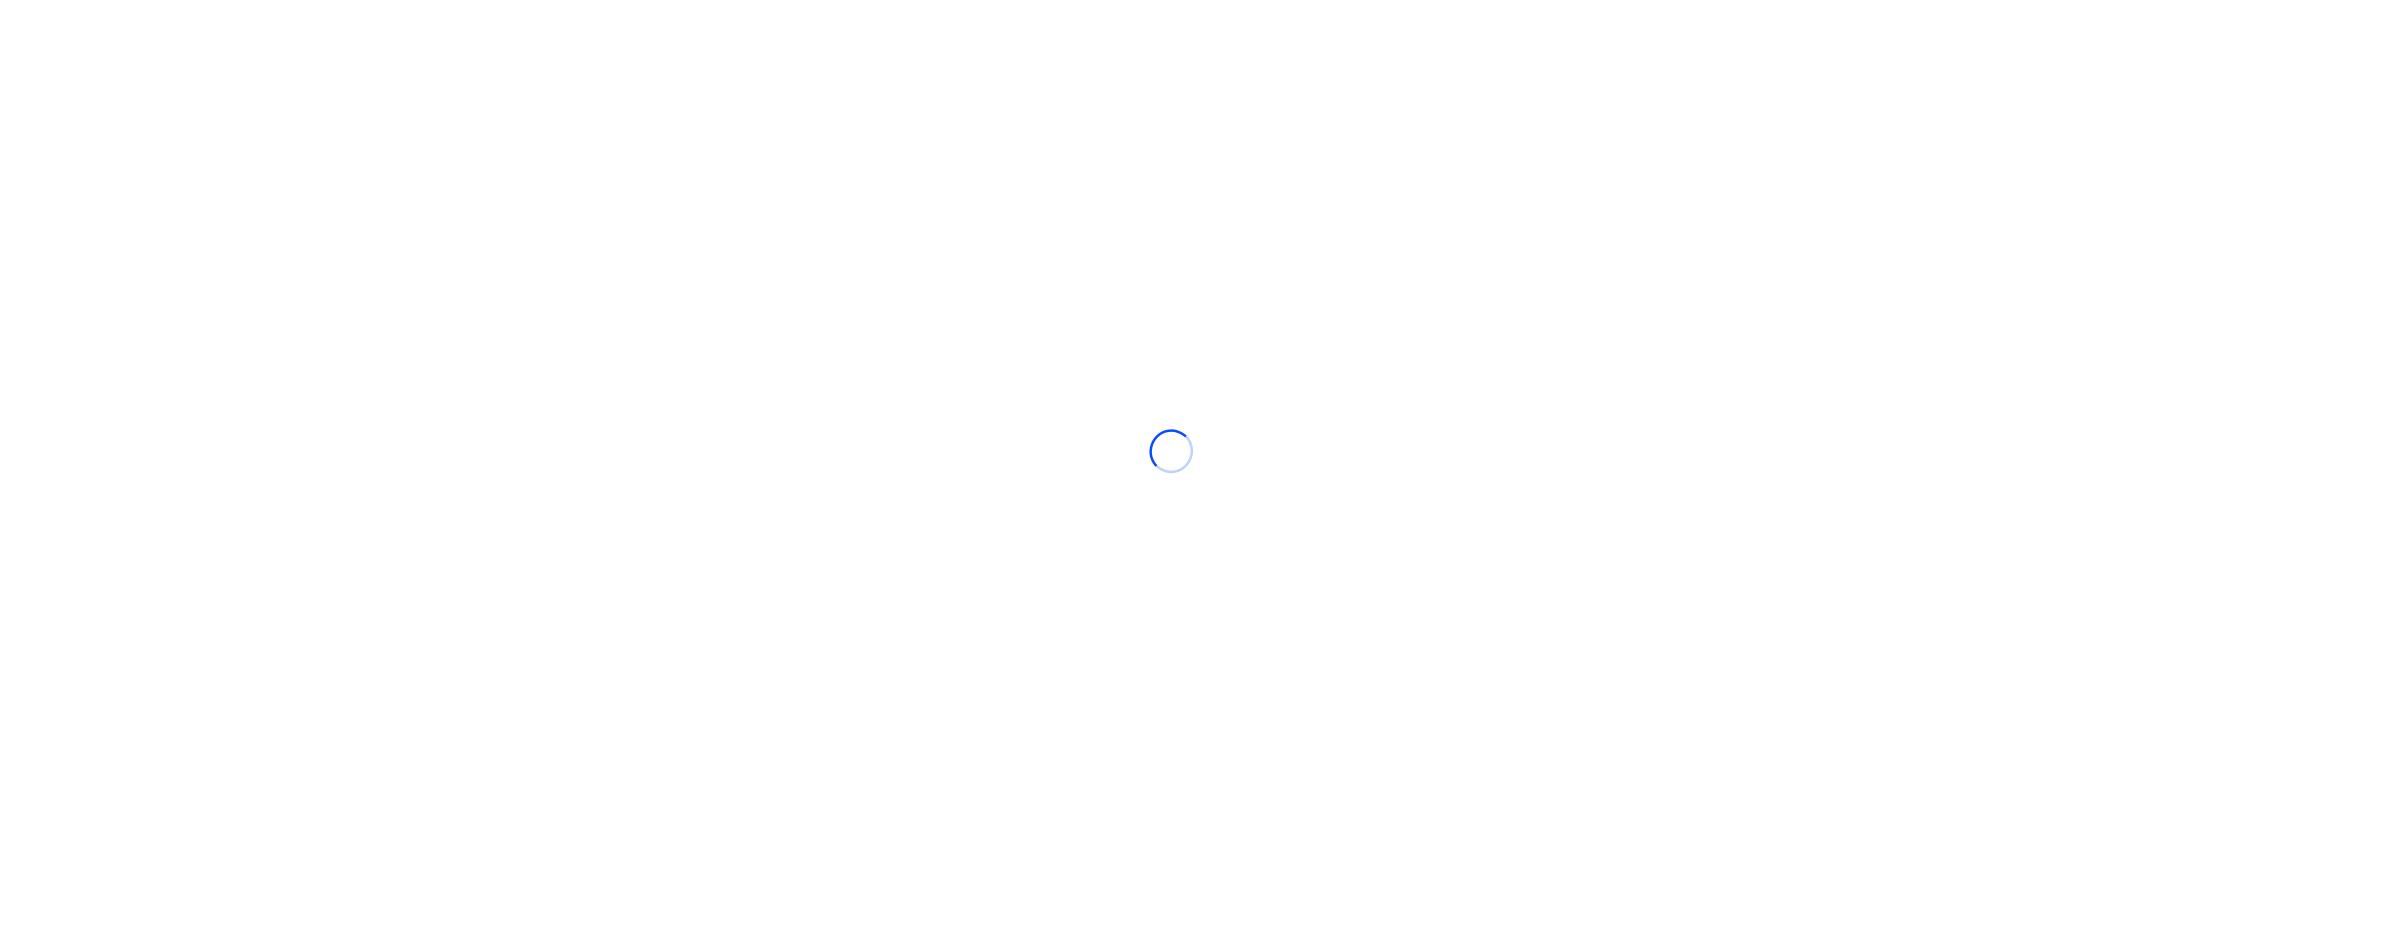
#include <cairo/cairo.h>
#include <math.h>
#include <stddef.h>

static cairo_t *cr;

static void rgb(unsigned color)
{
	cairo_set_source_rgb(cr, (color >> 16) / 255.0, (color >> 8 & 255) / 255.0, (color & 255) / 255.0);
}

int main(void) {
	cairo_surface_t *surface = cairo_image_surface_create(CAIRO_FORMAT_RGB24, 2386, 944);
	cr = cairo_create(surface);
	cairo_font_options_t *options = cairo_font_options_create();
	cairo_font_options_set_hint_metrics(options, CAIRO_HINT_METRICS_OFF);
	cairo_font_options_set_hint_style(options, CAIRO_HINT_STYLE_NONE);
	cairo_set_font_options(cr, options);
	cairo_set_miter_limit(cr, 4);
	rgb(0xffffff);
	cairo_paint(cr);
	cairo_new_path(cr);
	cairo_move_to(cr, 1186, 436.5);
	cairo_curve_to(cr, 1200, 451, 1187, 475.5, 1167, 471.5);
	cairo_curve_to(cr, 1163, 470.5, 1159.5, 468.5, 1156.5, 466);
	rgb(0xc0d0ff);
	cairo_set_line_width(cr, 2.5);
	cairo_stroke(cr);
	cairo_new_path(cr);
	cairo_move_to(cr, 1156.5, 466);
	cairo_curve_to(cr, 1142.5, 451.5, 1155.5, 427, 1175.5, 431);
	cairo_curve_to(cr, 1179.5, 432, 1183, 434, 1186, 436.5);
	cairo_set_source_rgba(cr, 0.004, 0.259, 1, 0.95);
	cairo_stroke(cr);
	cairo_surface_write_to_png(surface, "page.png");
	cairo_font_options_destroy(options);
	cairo_destroy(cr);
	cairo_surface_destroy(surface);
	return 0;
}
